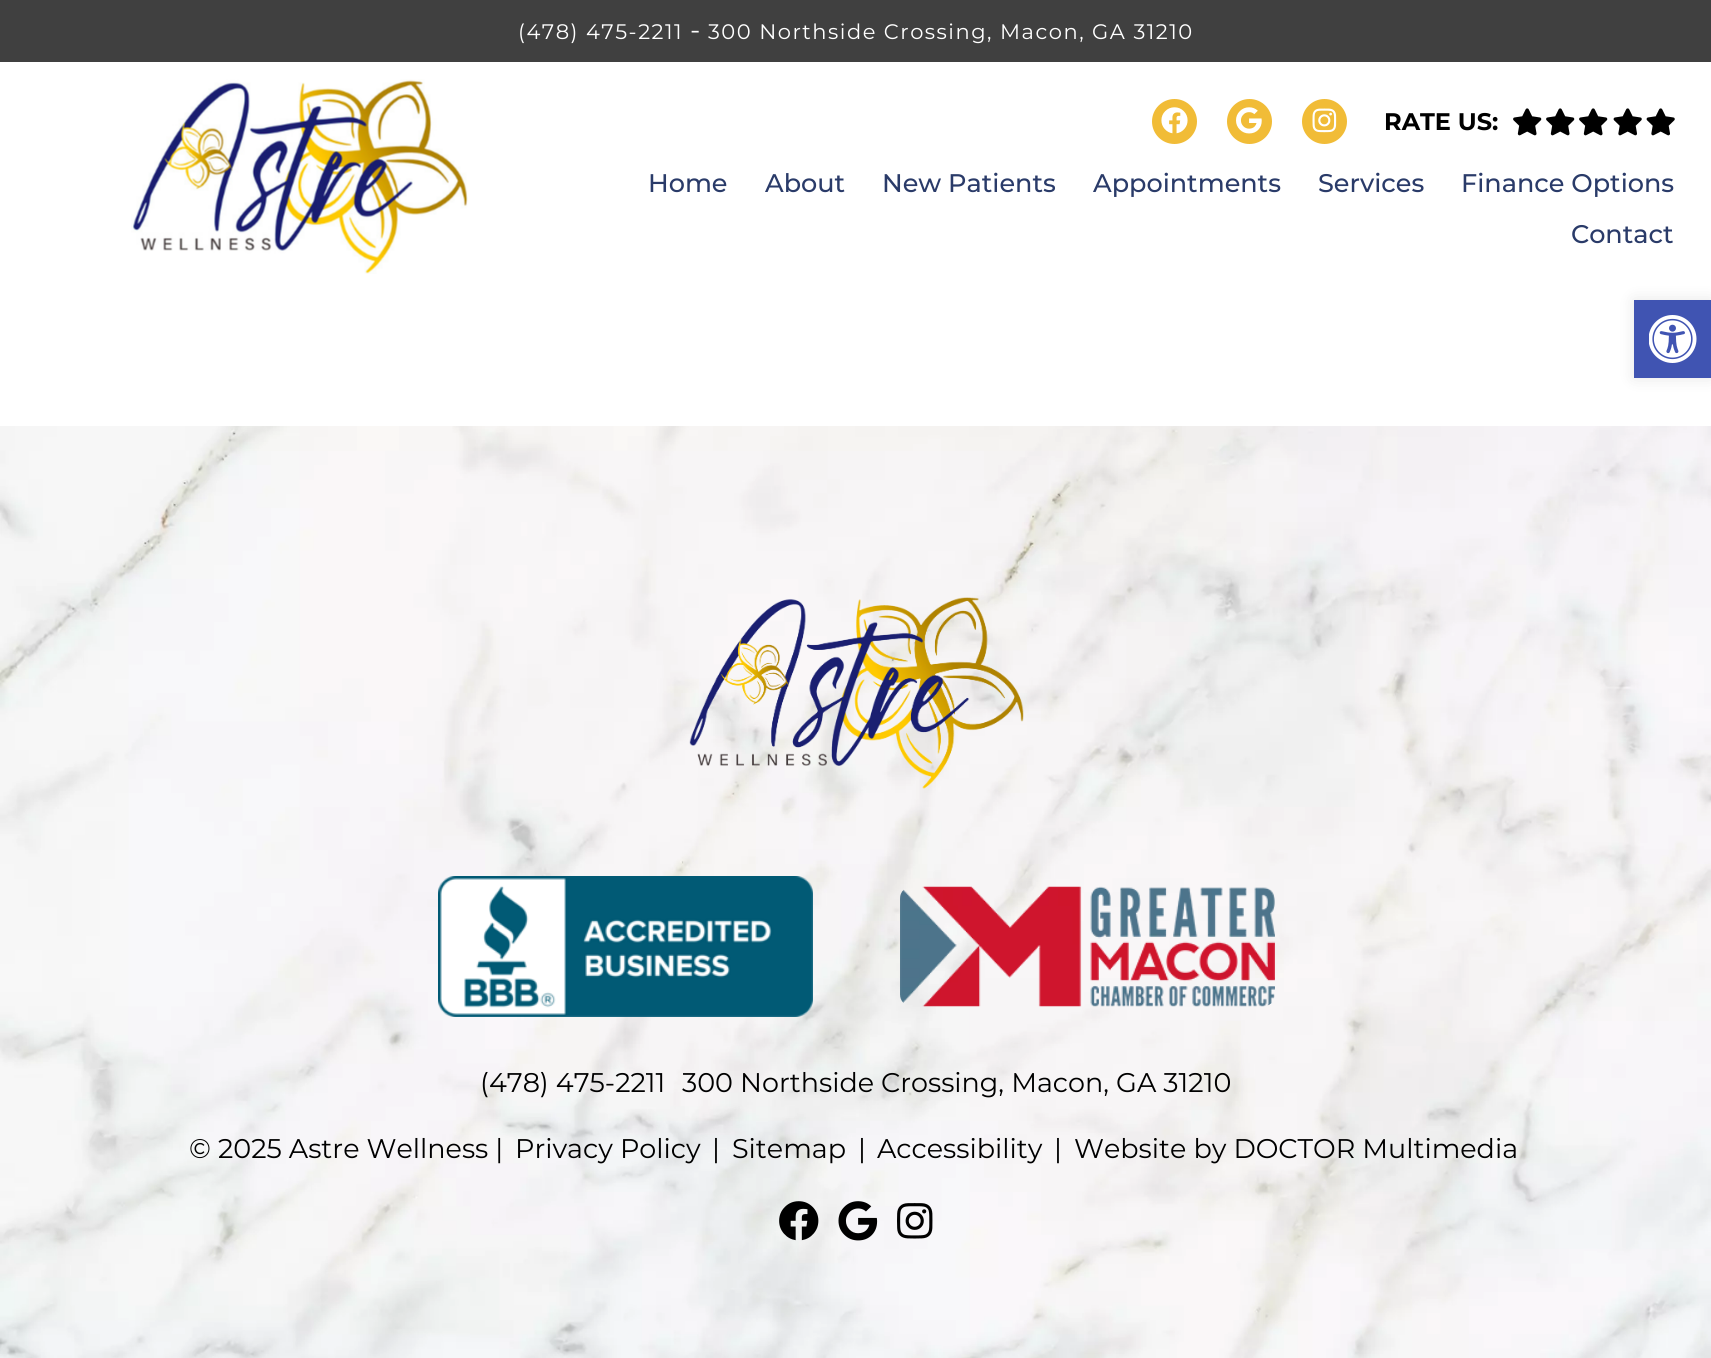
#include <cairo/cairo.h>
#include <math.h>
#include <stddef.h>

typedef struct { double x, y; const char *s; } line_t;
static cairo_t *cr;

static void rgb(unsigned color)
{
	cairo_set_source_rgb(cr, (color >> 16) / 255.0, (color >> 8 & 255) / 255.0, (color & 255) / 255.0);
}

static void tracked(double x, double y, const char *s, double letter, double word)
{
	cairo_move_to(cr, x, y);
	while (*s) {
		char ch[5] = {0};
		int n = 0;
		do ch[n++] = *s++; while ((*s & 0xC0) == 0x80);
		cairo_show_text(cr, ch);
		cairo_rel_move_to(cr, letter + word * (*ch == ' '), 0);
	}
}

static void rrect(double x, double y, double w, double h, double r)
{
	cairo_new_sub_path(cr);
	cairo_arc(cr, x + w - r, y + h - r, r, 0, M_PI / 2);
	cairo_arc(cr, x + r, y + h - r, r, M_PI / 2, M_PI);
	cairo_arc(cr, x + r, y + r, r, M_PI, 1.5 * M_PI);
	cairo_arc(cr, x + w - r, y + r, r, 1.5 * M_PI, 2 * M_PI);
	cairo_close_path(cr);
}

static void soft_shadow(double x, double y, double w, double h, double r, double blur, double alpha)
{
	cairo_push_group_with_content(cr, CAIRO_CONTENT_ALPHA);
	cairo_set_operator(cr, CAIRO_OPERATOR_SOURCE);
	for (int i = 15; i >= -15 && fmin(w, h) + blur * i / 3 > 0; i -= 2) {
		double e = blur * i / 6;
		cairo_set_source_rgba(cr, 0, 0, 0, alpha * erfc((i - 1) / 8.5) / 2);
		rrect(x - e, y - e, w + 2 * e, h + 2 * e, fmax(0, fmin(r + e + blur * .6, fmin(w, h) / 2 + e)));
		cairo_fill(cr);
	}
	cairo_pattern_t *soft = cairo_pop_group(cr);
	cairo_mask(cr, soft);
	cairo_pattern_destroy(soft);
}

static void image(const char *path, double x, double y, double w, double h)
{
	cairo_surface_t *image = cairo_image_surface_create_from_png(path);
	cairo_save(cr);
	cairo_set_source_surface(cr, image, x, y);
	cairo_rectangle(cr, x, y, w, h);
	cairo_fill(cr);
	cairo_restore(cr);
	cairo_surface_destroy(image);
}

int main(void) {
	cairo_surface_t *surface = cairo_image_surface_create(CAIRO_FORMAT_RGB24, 1711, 1358);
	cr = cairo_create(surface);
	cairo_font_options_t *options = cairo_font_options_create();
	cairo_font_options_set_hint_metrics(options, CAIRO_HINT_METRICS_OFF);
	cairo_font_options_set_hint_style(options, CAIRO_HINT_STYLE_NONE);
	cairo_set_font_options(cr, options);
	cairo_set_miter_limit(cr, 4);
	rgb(0xffffff);
	cairo_paint(cr);
	rgb(0x404040);
	cairo_rectangle(cr, 0, 0, 1711, 62);
	cairo_fill(cr);
	image("img/1.png", 131, 79, 337, 195);
	rgb(0xf1bc37);
	cairo_arc(cr, 1174.5, 121.5, 22.5, 0, 2 * M_PI);
	cairo_fill(cr);
	image("img/2.png", 1161, 107, 27, 27);
	cairo_arc(cr, 1249.5, 121.5, 22.5, 0, 2 * M_PI);
	cairo_fill(cr);
	image("img/3.png", 1236, 107, 26, 27);
	cairo_arc(cr, 1324.5, 121.5, 22.5, 0, 2 * M_PI);
	cairo_fill(cr);
	image("img/4.png", 1312, 108, 25, 25);
	image("img/5.png", 1513, 108, 29, 28);
	image("img/5.png", 1546, 108, 29, 28);
	image("img/5.png", 1579, 108, 29, 28);
	image("img/6.png", 1613, 108, 29, 28);
	image("img/6.png", 1646, 108, 29, 28);
	image("img/7.png", 0, 426, 1711, 932);
	image("img/8.png", 689, 597, 335, 192);
	image("img/9.png", 438, 876, 375, 141);
	image("img/10.png", 900, 886, 375, 121);
	image("img/11.png", 779, 1201, 40, 40);
	image("img/12.png", 838, 1201, 40, 40);
	image("img/13.png", 897, 1203, 36, 36);
	rgb(0x000000);
	soft_shadow(1634, 300, 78, 78, 0, 7.5, 0.1);
	rgb(0x4054b2);
	cairo_rectangle(cr, 1634, 300, 77, 78);
	cairo_fill(cr);
	image("img/14.png", 1649, 315, 48, 48);
	cairo_select_font_face(cr, "Montserrat", CAIRO_FONT_SLANT_NORMAL, CAIRO_FONT_WEIGHT_NORMAL);
	cairo_set_font_size(cr, 21);
	rgb(0xffffff);
	tracked(518, 39, "(478) 475-2211", 1.5, 0);
	cairo_set_font_size(cr, 27);
	cairo_move_to(cr, 690, 39);
	cairo_show_text(cr, "-");
	cairo_set_font_size(cr, 21);
	tracked(708, 39, "300 Northside Crossing, Macon, GA 31210", 1.5, 0);
	cairo_select_font_face(cr, "Montserrat", CAIRO_FONT_SLANT_NORMAL, CAIRO_FONT_WEIGHT_BOLD);
	cairo_set_font_size(cr, 24);
	rgb(0x000000);
	cairo_move_to(cr, 1384, 130);
	cairo_show_text(cr, "RATE US:");
	cairo_select_font_face(cr, "Montserrat Medium", CAIRO_FONT_SLANT_NORMAL, CAIRO_FONT_WEIGHT_NORMAL);
	cairo_set_font_size(cr, 25.5);
	rgb(0x2a3b69);
	{
		static const line_t items[] = {
			{648, 192, "Home"},
			{765, 192, "About"},
			{882, 192, "New Patients"},
			{1093, 192, "Appointments"},
			{1318, 192, "Services"},
			{1461, 192, "Finance Options"},
			{1571, 243, "Contact"},
		};
		for (size_t i = 0; i < sizeof items / sizeof *items; i++) {
			cairo_move_to(cr, items[i].x, items[i].y);
			cairo_show_text(cr, items[i].s);
		}
	}
	cairo_select_font_face(cr, "Montserrat", CAIRO_FONT_SLANT_NORMAL, CAIRO_FONT_WEIGHT_NORMAL);
	cairo_set_font_size(cr, 27);
	rgb(0x000000);
	{
		static const line_t items[] = {
			{480, 1092, "(478) 475-2211"},
			{682, 1092, "300 Northside Crossing, Macon, GA 31210"},
			{189, 1158, "© 2025 Astre Wellness |"},
			{515, 1158, "Privacy Policy"},
			{712, 1158, "|"},
			{732, 1158, "Sitemap"},
			{858, 1158, "|"},
			{877, 1158, "Accessibility"},
			{1054, 1158, "|"},
			{1074, 1158, "Website by DOCTOR Multimedia"},
		};
		for (size_t i = 0; i < sizeof items / sizeof *items; i++) {
			cairo_move_to(cr, items[i].x, items[i].y);
			cairo_show_text(cr, items[i].s);
		}
	}
	cairo_surface_write_to_png(surface, "page.png");
	cairo_font_options_destroy(options);
	cairo_destroy(cr);
	cairo_surface_destroy(surface);
	return 0;
}
